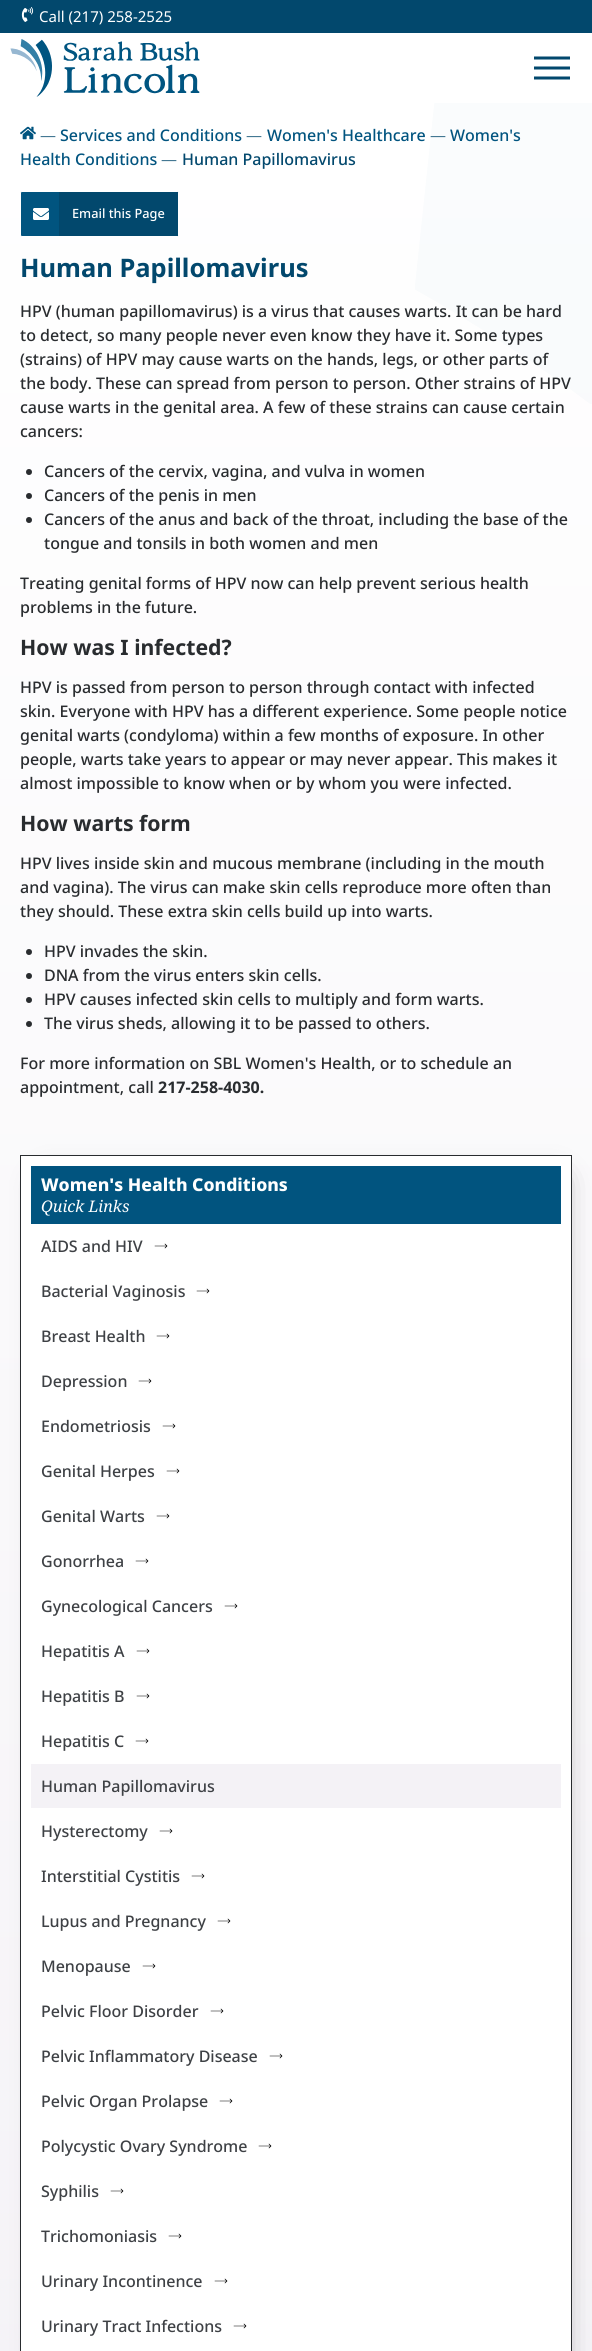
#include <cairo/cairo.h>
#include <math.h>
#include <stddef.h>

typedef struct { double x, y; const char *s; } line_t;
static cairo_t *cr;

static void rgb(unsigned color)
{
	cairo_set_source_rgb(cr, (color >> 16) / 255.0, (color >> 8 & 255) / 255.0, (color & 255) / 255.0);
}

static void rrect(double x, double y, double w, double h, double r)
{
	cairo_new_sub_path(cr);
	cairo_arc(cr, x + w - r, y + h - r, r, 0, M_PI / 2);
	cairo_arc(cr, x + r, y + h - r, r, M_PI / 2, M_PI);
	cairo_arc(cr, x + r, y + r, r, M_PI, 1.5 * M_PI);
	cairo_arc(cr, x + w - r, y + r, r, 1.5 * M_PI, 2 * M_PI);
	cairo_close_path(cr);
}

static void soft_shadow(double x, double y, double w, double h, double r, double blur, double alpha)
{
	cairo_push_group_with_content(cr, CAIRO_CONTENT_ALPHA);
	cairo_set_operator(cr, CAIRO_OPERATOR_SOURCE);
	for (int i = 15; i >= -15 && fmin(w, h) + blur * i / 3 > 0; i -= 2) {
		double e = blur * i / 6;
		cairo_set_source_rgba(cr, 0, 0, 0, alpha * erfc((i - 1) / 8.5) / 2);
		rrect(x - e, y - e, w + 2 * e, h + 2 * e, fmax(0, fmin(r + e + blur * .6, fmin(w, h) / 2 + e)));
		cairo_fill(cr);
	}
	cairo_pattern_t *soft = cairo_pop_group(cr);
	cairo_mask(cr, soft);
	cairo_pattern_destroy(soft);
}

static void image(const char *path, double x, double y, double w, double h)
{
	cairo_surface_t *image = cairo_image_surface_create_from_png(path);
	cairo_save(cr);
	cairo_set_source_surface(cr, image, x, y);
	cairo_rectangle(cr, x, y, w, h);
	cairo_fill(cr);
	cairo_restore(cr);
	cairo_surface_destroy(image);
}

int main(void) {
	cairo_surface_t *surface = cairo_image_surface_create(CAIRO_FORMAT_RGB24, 592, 2351);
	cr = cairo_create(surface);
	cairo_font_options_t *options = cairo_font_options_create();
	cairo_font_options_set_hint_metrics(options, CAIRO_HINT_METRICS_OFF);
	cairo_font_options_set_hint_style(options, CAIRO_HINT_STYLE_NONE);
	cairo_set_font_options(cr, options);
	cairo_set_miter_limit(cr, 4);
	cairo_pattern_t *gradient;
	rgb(0x02486d);
	cairo_paint(cr);
	image("img/1.png", 21, 7, 13, 15);
	rgb(0xffffff);
	cairo_rectangle(cr, 0, 33, 592, 70);
	cairo_fill(cr);
	image("img/2.png", 10, 39, 190, 58);
	cairo_new_path(cr);
	cairo_move_to(cr, 534, 68);
	cairo_line_to(cr, 570, 68);
	cairo_move_to(cr, 534, 58);
	cairo_line_to(cr, 570, 58);
	cairo_move_to(cr, 534, 78);
	cairo_line_to(cr, 570, 78);
	rgb(0x02486d);
	cairo_set_line_width(cr, 3);
	cairo_stroke(cr);
	gradient = cairo_pattern_create_linear(296, 103, 296, 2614);
	cairo_pattern_add_color_stop_rgba(gradient, 0, 1, 1, 1, 1);
	cairo_pattern_add_color_stop_rgba(gradient, 1, 0.957, 0.949, 0.965, 1);
	cairo_set_source(cr, gradient);
	cairo_pattern_destroy(gradient);
	cairo_rectangle(cr, 0, 103, 592, 2248);
	cairo_fill(cr);
	image("img/3.png", 415, 103, 177, 301);
	image("img/4.png", 20, 126, 16, 14);
	rgb(0x01547f);
	rrect(20.5, 191.5, 158, 45, 1.5);
	cairo_fill_preserve(cr);
	rgb(0xffffff);
	cairo_set_line_width(cr, 1);
	cairo_stroke(cr);
	image("img/5.png", 33, 208, 16, 12);
	rgb(0x02486d);
	cairo_rectangle(cr, 59, 192, 119, 44);
	cairo_fill(cr);
	rgb(0x292c2f);
	cairo_arc(cr, 29, 472, 3, 0, 2 * M_PI);
	cairo_fill(cr);
	cairo_arc(cr, 29, 496, 3, 0, 2 * M_PI);
	cairo_fill(cr);
	cairo_arc(cr, 29, 520, 3, 0, 2 * M_PI);
	cairo_fill(cr);
	cairo_arc(cr, 29, 952, 3, 0, 2 * M_PI);
	cairo_fill(cr);
	cairo_arc(cr, 29, 976, 3, 0, 2 * M_PI);
	cairo_fill(cr);
	cairo_arc(cr, 29, 1000, 3, 0, 2 * M_PI);
	cairo_fill(cr);
	cairo_arc(cr, 29, 1024, 3, 0, 2 * M_PI);
	cairo_fill(cr);
	rgb(0x000000);
	soft_shadow(46, 1181, 512, 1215, 0, 15, 0.5);
	rgb(0xffffff);
	cairo_rectangle(cr, 20.5, 1155.5, 551, 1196);
	cairo_fill_preserve(cr);
	rgb(0x292c2f);
	cairo_stroke(cr);
	rgb(0x01547f);
	cairo_rectangle(cr, 31, 1166, 530, 58);
	cairo_fill(cr);
	image("img/6.png", 154, 1243, 14, 6);
	image("img/6.png", 196, 1288, 14, 6);
	image("img/6.png", 156, 1333, 14, 6);
	image("img/6.png", 138, 1378, 14, 6);
	image("img/6.png", 162, 1423, 14, 6);
	image("img/6.png", 166, 1468, 14, 6);
	image("img/6.png", 156, 1513, 14, 6);
	image("img/6.png", 135, 1558, 14, 6);
	image("img/6.png", 224, 1603, 14, 6);
	image("img/6.png", 136, 1648, 14, 6);
	image("img/6.png", 136, 1693, 14, 6);
	image("img/6.png", 135, 1738, 14, 6);
	rgb(0xf4f2f6);
	cairo_rectangle(cr, 31, 1764, 530, 44);
	cairo_fill(cr);
	image("img/6.png", 159, 1828, 14, 6);
	image("img/6.png", 191, 1873, 14, 6);
	image("img/6.png", 217, 1918, 14, 6);
	image("img/6.png", 142, 1963, 14, 6);
	image("img/6.png", 210, 2008, 14, 6);
	image("img/6.png", 269, 2053, 14, 6);
	image("img/6.png", 219, 2098, 14, 6);
	image("img/6.png", 258, 2143, 14, 6);
	image("img/6.png", 110, 2188, 14, 6);
	image("img/6.png", 168, 2233, 14, 6);
	image("img/6.png", 214, 2278, 14, 6);
	image("img/6.png", 233, 2323, 14, 6);
	cairo_select_font_face(cr, "Noto Sans", CAIRO_FONT_SLANT_NORMAL, CAIRO_FONT_WEIGHT_NORMAL);
	cairo_set_font_size(cr, 15);
	rgb(0xffffff);
	cairo_move_to(cr, 39, 22);
	cairo_show_text(cr, "Call (217) 258-2525");
	cairo_select_font_face(cr, "Noto Sans Light", CAIRO_FONT_SLANT_NORMAL, CAIRO_FONT_WEIGHT_NORMAL);
	cairo_set_font_size(cr, 16);
	rgb(0x02486d);
	cairo_move_to(cr, 40, 141);
	cairo_show_text(cr, "—");
	cairo_select_font_face(cr, "Noto Sans Medium", CAIRO_FONT_SLANT_NORMAL, CAIRO_FONT_WEIGHT_NORMAL);
	rgb(0x01547f);
	cairo_move_to(cr, 60, 141);
	cairo_show_text(cr, "Services and Conditions");
	cairo_select_font_face(cr, "Noto Sans Light", CAIRO_FONT_SLANT_NORMAL, CAIRO_FONT_WEIGHT_NORMAL);
	rgb(0x02486d);
	cairo_move_to(cr, 246, 141);
	cairo_show_text(cr, "—");
	cairo_select_font_face(cr, "Noto Sans Medium", CAIRO_FONT_SLANT_NORMAL, CAIRO_FONT_WEIGHT_NORMAL);
	rgb(0x01547f);
	cairo_move_to(cr, 267, 141);
	cairo_show_text(cr, "Women's Healthcare");
	cairo_select_font_face(cr, "Noto Sans Light", CAIRO_FONT_SLANT_NORMAL, CAIRO_FONT_WEIGHT_NORMAL);
	rgb(0x02486d);
	cairo_move_to(cr, 430, 141);
	cairo_show_text(cr, "—");
	cairo_select_font_face(cr, "Noto Sans Medium", CAIRO_FONT_SLANT_NORMAL, CAIRO_FONT_WEIGHT_NORMAL);
	rgb(0x01547f);
	cairo_move_to(cr, 450, 141);
	cairo_show_text(cr, "Women's");
	cairo_move_to(cr, 20, 165);
	cairo_show_text(cr, "Health Conditions");
	cairo_select_font_face(cr, "Noto Sans Light", CAIRO_FONT_SLANT_NORMAL, CAIRO_FONT_WEIGHT_NORMAL);
	rgb(0x02486d);
	cairo_move_to(cr, 161, 165);
	cairo_show_text(cr, "—");
	cairo_select_font_face(cr, "Noto Sans Medium", CAIRO_FONT_SLANT_NORMAL, CAIRO_FONT_WEIGHT_NORMAL);
	cairo_move_to(cr, 182, 165);
	cairo_show_text(cr, "Human Papillomavirus");
	cairo_set_font_size(cr, 12.75);
	rgb(0xffffff);
	cairo_move_to(cr, 72, 218);
	cairo_show_text(cr, "Email this Page");
	cairo_select_font_face(cr, "Noto Sans", CAIRO_FONT_SLANT_NORMAL, CAIRO_FONT_WEIGHT_BOLD);
	cairo_set_font_size(cr, 25.5);
	rgb(0x02486d);
	cairo_move_to(cr, 20, 277);
	cairo_show_text(cr, "Human Papillomavirus");
	cairo_select_font_face(cr, "Noto Sans Medium", CAIRO_FONT_SLANT_NORMAL, CAIRO_FONT_WEIGHT_NORMAL);
	cairo_set_font_size(cr, 16);
	rgb(0x292c2f);
	{
		static const line_t items[] = {
			{20, 317, "HPV (human papillomavirus) is a virus that causes warts. It can be hard"},
			{20, 341, "to detect, so many people never even know they have it. Some types"},
			{20, 365, "(strains) of HPV may cause warts on the hands, legs, or other parts of"},
			{20, 389, "the body. These can spread from person to person. Other strains of HPV"},
			{20, 413, "cause warts in the genital area. A few of these strains can cause certain"},
			{20, 437, "cancers:"},
			{44, 477, "Cancers of the cervix, vagina, and vulva in women"},
			{44, 501, "Cancers of the penis in men"},
			{44, 525, "Cancers of the anus and back of the throat, including the base of the"},
			{44, 549, "tongue and tonsils in both women and men"},
			{20, 589, "Treating genital forms of HPV now can help prevent serious health"},
			{20, 613, "problems in the future."},
		};
		for (size_t i = 0; i < sizeof items / sizeof *items; i++) {
			cairo_move_to(cr, items[i].x, items[i].y);
			cairo_show_text(cr, items[i].s);
		}
	}
	cairo_select_font_face(cr, "Noto Sans", CAIRO_FONT_SLANT_NORMAL, CAIRO_FONT_WEIGHT_BOLD);
	cairo_set_font_size(cr, 21.25);
	cairo_move_to(cr, 20, 655);
	cairo_show_text(cr, "How was I infected?");
	cairo_select_font_face(cr, "Noto Sans Medium", CAIRO_FONT_SLANT_NORMAL, CAIRO_FONT_WEIGHT_NORMAL);
	cairo_set_font_size(cr, 16);
	{
		static const line_t items[] = {
			{20, 693, "HPV is passed from person to person through contact with infected"},
			{20, 717, "skin. Everyone with HPV has a different experience. Some people notice"},
			{20, 741, "genital warts (condyloma) within a few months of exposure. In other"},
			{20, 765, "people, warts take years to appear or may never appear. This makes it"},
			{20, 789, "almost impossible to know when or by whom you were infected."},
		};
		for (size_t i = 0; i < sizeof items / sizeof *items; i++) {
			cairo_move_to(cr, items[i].x, items[i].y);
			cairo_show_text(cr, items[i].s);
		}
	}
	cairo_select_font_face(cr, "Noto Sans", CAIRO_FONT_SLANT_NORMAL, CAIRO_FONT_WEIGHT_BOLD);
	cairo_set_font_size(cr, 21.25);
	cairo_move_to(cr, 20, 831);
	cairo_show_text(cr, "How warts form");
	cairo_select_font_face(cr, "Noto Sans Medium", CAIRO_FONT_SLANT_NORMAL, CAIRO_FONT_WEIGHT_NORMAL);
	cairo_set_font_size(cr, 16);
	{
		static const line_t items[] = {
			{20, 869, "HPV lives inside skin and mucous membrane (including in the mouth"},
			{20, 893, "and vagina). The virus can make skin cells reproduce more often than"},
			{20, 917, "they should. These extra skin cells build up into warts."},
			{44, 957, "HPV invades the skin."},
			{44, 981, "DNA from the virus enters skin cells."},
			{44, 1005, "HPV causes infected skin cells to multiply and form warts."},
			{44, 1029, "The virus sheds, allowing it to be passed to others."},
			{20, 1069, "For more information on SBL Women's Health, or to schedule an"},
			{20, 1093, "appointment, call"},
		};
		for (size_t i = 0; i < sizeof items / sizeof *items; i++) {
			cairo_move_to(cr, items[i].x, items[i].y);
			cairo_show_text(cr, items[i].s);
		}
	}
	cairo_select_font_face(cr, "Noto Sans", CAIRO_FONT_SLANT_NORMAL, CAIRO_FONT_WEIGHT_BOLD);
	cairo_move_to(cr, 158, 1093);
	cairo_show_text(cr, "217-258-4030.");
	cairo_select_font_face(cr, "Noto Sans ExtraBold", CAIRO_FONT_SLANT_NORMAL, CAIRO_FONT_WEIGHT_NORMAL);
	cairo_set_font_size(cr, 17.6);
	rgb(0xffffff);
	cairo_move_to(cr, 41, 1191);
	cairo_show_text(cr, "Women's Health Conditions");
	cairo_select_font_face(cr, "Noto Serif", CAIRO_FONT_SLANT_ITALIC, CAIRO_FONT_WEIGHT_NORMAL);
	cairo_set_font_size(cr, 16);
	cairo_move_to(cr, 41, 1212);
	cairo_show_text(cr, "Quick Links");
	cairo_select_font_face(cr, "Noto Sans Medium", CAIRO_FONT_SLANT_NORMAL, CAIRO_FONT_WEIGHT_NORMAL);
	rgb(0x3e4145);
	{
		static const line_t items[] = {
			{41, 1252, "AIDS and HIV"},
			{41, 1297, "Bacterial Vaginosis"},
			{41, 1342, "Breast Health"},
			{41, 1387, "Depression"},
			{41, 1432, "Endometriosis"},
			{41, 1477, "Genital Herpes"},
			{41, 1522, "Genital Warts"},
			{41, 1567, "Gonorrhea"},
			{41, 1612, "Gynecological Cancers"},
			{41, 1657, "Hepatitis A"},
			{41, 1702, "Hepatitis B"},
			{41, 1747, "Hepatitis C"},
			{41, 1792, "Human Papillomavirus"},
			{41, 1837, "Hysterectomy"},
			{41, 1882, "Interstitial Cystitis"},
			{41, 1927, "Lupus and Pregnancy"},
			{41, 1972, "Menopause"},
			{41, 2017, "Pelvic Floor Disorder"},
			{41, 2062, "Pelvic Inflammatory Disease"},
			{41, 2107, "Pelvic Organ Prolapse"},
			{41, 2152, "Polycystic Ovary Syndrome"},
			{41, 2197, "Syphilis"},
			{41, 2242, "Trichomoniasis"},
			{41, 2287, "Urinary Incontinence"},
			{41, 2332, "Urinary Tract Infections"},
		};
		for (size_t i = 0; i < sizeof items / sizeof *items; i++) {
			cairo_move_to(cr, items[i].x, items[i].y);
			cairo_show_text(cr, items[i].s);
		}
	}
	cairo_surface_write_to_png(surface, "page.png");
	cairo_font_options_destroy(options);
	cairo_destroy(cr);
	cairo_surface_destroy(surface);
	return 0;
}
